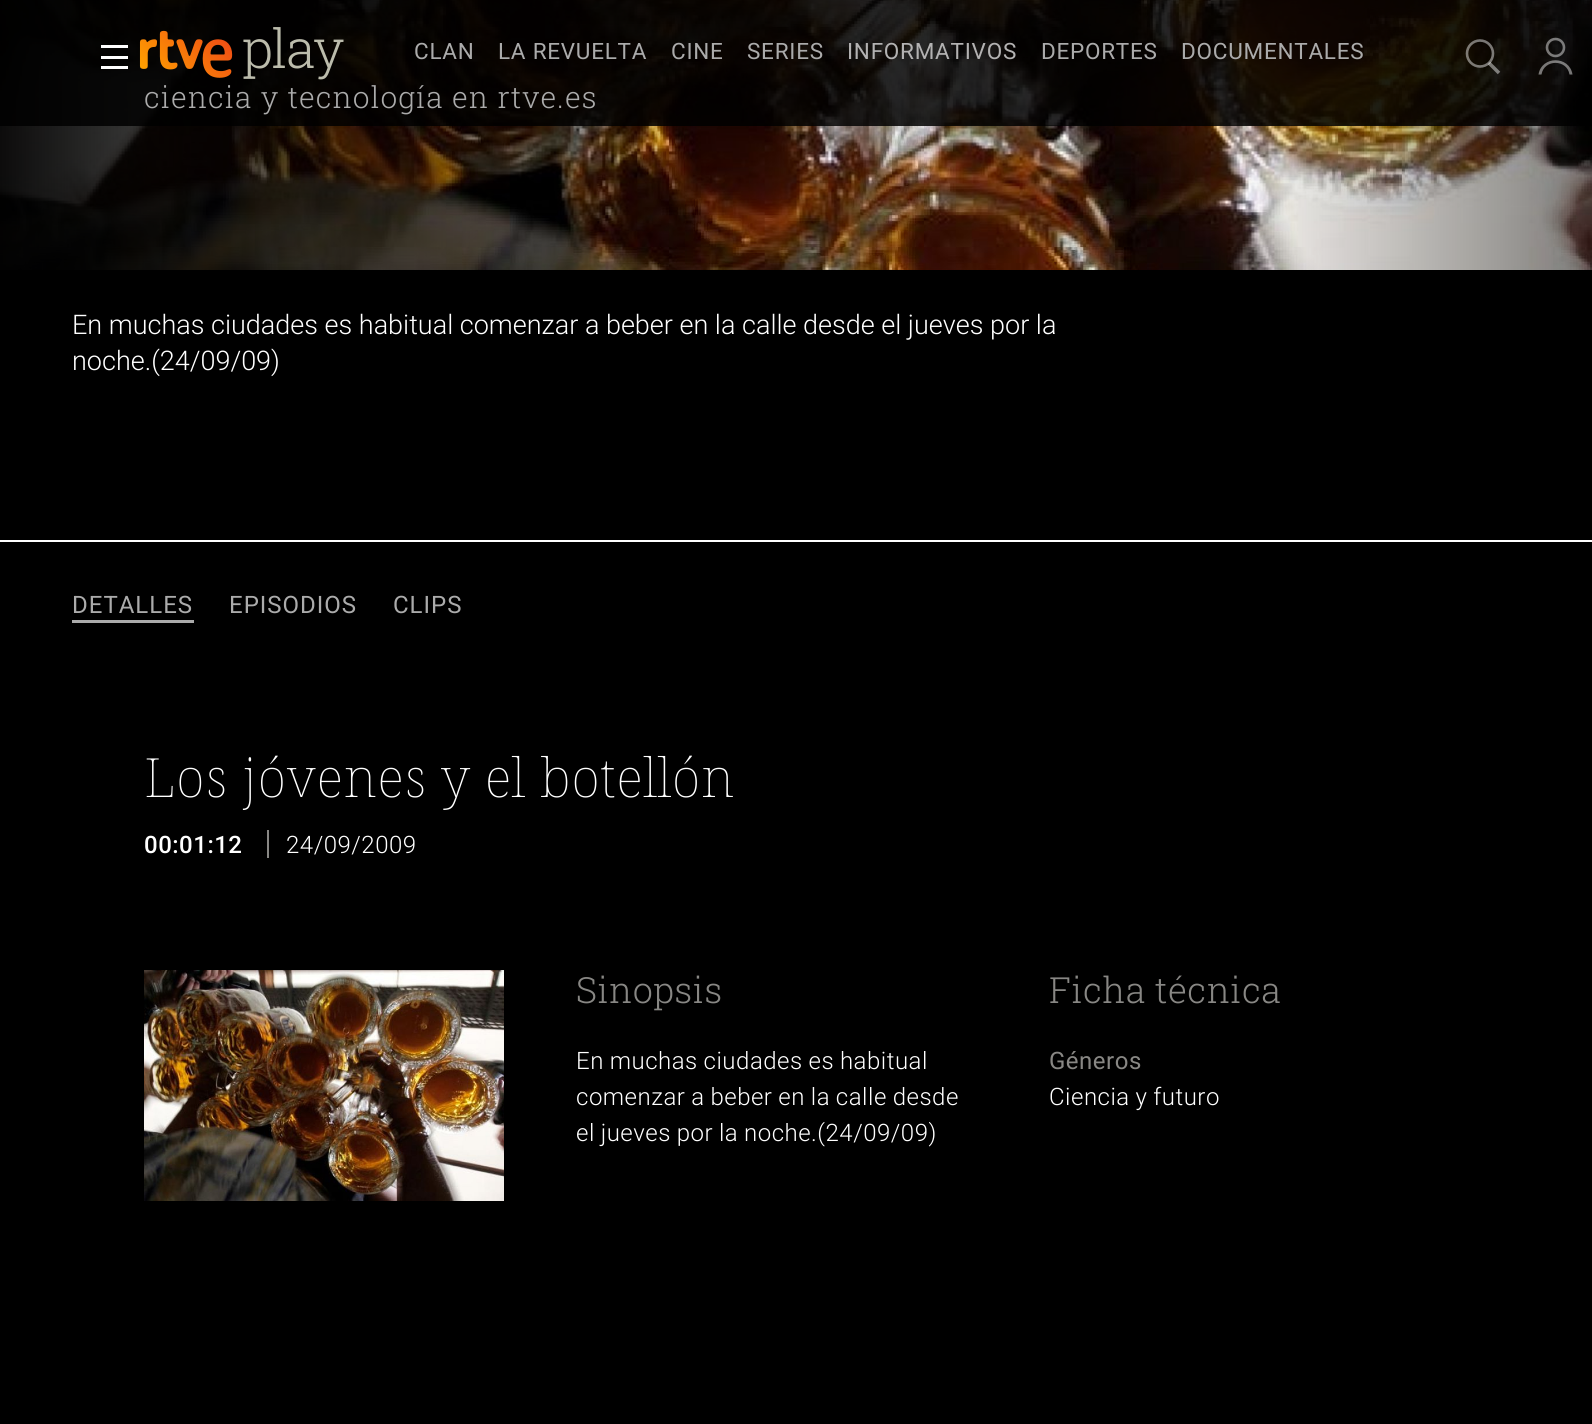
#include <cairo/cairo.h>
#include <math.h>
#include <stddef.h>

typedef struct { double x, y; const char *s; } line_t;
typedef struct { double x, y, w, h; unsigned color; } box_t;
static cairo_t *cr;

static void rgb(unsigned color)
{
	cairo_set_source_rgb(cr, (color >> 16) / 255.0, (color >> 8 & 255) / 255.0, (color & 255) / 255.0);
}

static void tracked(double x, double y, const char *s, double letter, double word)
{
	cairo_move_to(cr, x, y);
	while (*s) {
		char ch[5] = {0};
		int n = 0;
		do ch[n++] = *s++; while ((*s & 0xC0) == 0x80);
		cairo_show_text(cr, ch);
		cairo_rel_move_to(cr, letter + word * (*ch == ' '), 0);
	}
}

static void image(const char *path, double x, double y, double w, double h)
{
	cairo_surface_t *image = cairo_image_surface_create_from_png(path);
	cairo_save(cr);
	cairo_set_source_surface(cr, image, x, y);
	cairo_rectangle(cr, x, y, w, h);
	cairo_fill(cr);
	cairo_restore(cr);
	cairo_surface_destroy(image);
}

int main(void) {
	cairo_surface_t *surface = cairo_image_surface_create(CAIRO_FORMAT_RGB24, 1592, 1424);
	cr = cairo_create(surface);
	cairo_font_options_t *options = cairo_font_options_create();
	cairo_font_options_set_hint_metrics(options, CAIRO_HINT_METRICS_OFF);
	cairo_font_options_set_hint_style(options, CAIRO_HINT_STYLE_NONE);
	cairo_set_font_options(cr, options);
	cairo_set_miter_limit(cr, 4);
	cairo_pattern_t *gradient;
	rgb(0x000000);
	cairo_paint(cr);
	image("img/3.png", 0, 0, 1592, 270);
	gradient = cairo_pattern_create_linear(0, -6.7, 797, -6.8);
	cairo_pattern_add_color_stop_rgba(gradient, 0, 0, 0, 0, 0.95);
	cairo_pattern_add_color_stop_rgba(gradient, 1, 0, 0, 0, 0);
	cairo_set_source(cr, gradient);
	cairo_pattern_destroy(gradient);
	cairo_rectangle(cr, 0, 0, 779, 270);
	cairo_fill(cr);
	gradient = cairo_pattern_create_linear(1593, -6.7, 1233, -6.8);
	cairo_pattern_add_color_stop_rgba(gradient, 0, 0, 0, 0, 0.5);
	cairo_pattern_add_color_stop_rgba(gradient, 1, 0, 0, 0, 0);
	cairo_set_source(cr, gradient);
	cairo_pattern_destroy(gradient);
	cairo_rectangle(cr, 1248, 0, 344, 270);
	cairo_fill(cr);
	cairo_set_source_rgba(cr, 0, 0, 0, 0.85);
	cairo_rectangle(cr, 0, 0, 1592, 126);
	cairo_fill(cr);
	rgb(0xffffff);
	cairo_rectangle(cr, 101, 45, 27, 3);
	cairo_fill(cr);
	cairo_rectangle(cr, 101, 56, 27, 3);
	cairo_fill(cr);
	cairo_rectangle(cr, 101, 66, 27, 3);
	cairo_fill(cr);
	cairo_arc(cr, 1480, 53.5, 13, 0, 2 * M_PI);
	cairo_set_source_rgba(cr, 1, 1, 1, 0.45);
	cairo_set_line_width(cr, 2.6);
	cairo_stroke(cr);
	cairo_new_path(cr);
	cairo_move_to(cr, 1489, 63);
	cairo_line_to(cr, 1499, 73);
	cairo_set_line_width(cr, 3.5);
	cairo_stroke(cr);
	cairo_new_path(cr);
	cairo_move_to(cr, 1541.5, 74.5);
	cairo_curve_to(cr, 1544, 59, 1567, 59, 1569.5, 74.5);
	cairo_line_to(cr, 1572.5, 74.5);
	cairo_curve_to(cr, 1569.5, 55.5, 1541.5, 55.5, 1538.5, 74.5);
	cairo_close_path(cr);
	cairo_fill(cr);
	cairo_arc(cr, 1555.5, 47.5, 8.5, 0, 2 * M_PI);
	cairo_set_line_width(cr, 2.6);
	cairo_stroke(cr);
	image("img/1.png", 139, 30, 94, 48);
	image("img/2.png", 243, 27, 101, 53);
	{
		static const box_t items[] = {
			{0, 540, 1592, 2, 0xffffff},
			{72, 620, 122, 3, 0xababab},
			{267, 830, 2, 28, 0x888784},
		};
		for (size_t i = 0; i < sizeof items / sizeof *items; i++) {
			rgb(items[i].color);
			cairo_rectangle(cr, items[i].x, items[i].y, items[i].w, items[i].h);
			cairo_fill(cr);
		}
	}
	image("img/4.png", 144, 970, 360, 231);
	cairo_select_font_face(cr, "Roboto", CAIRO_FONT_SLANT_NORMAL, CAIRO_FONT_WEIGHT_NORMAL);
	cairo_set_font_size(cr, 22.5);
	rgb(0xababab);
	{
		static const line_t items[] = {
			{414, 59, "CLAN"},
			{498, 59, "LA REVUELTA"},
			{671, 59, "CINE"},
			{747, 59, "SERIES"},
		};
		for (size_t i = 0; i < sizeof items / sizeof *items; i++) {
			tracked(items[i].x, items[i].y, items[i].s, 0.75, 0);
		}
	}
	rgb(0xb3b2b2);
	tracked(847, 59, "INFORMATIVOS", 0.75, 0);
	rgb(0xababab);
	tracked(1041, 59, "DEPORTES", 0.75, 0);
	tracked(1181, 59, "DOCUMENTALES", 0.75, 0);
	cairo_select_font_face(cr, "Roboto Slab Light", CAIRO_FONT_SLANT_NORMAL, CAIRO_FONT_WEIGHT_NORMAL);
	cairo_set_font_size(cr, 30);
	tracked(144, 108, "ciencia y tecnología en rtve.es", 1, 0);
	cairo_select_font_face(cr, "Roboto Light", CAIRO_FONT_SLANT_NORMAL, CAIRO_FONT_WEIGHT_NORMAL);
	cairo_set_font_size(cr, 27);
	rgb(0xffffff);
	cairo_move_to(cr, 72, 334);
	cairo_show_text(cr, "En muchas ciudades es habitual comenzar a beber en la calle desde el jueves por la");
	cairo_move_to(cr, 72, 370);
	cairo_show_text(cr, "noche.(24/09/09)");
	cairo_select_font_face(cr, "Roboto", CAIRO_FONT_SLANT_NORMAL, CAIRO_FONT_WEIGHT_NORMAL);
	cairo_set_font_size(cr, 24);
	rgb(0xababab);
	{
		static const line_t items[] = {
			{72, 613, "DETALLES"},
			{229, 613, "EPISODIOS"},
			{393, 613, "CLIPS"},
		};
		for (size_t i = 0; i < sizeof items / sizeof *items; i++) {
			tracked(items[i].x, items[i].y, items[i].s, 1, 0);
		}
	}
	cairo_select_font_face(cr, "Noto Serif Thin", CAIRO_FONT_SLANT_NORMAL, CAIRO_FONT_WEIGHT_NORMAL);
	cairo_set_font_size(cr, 54);
	rgb(0xffffff);
	tracked(144, 797, "Los jóvenes y el botellón", 0.5, -0.5);
	cairo_select_font_face(cr, "Roboto Medium", CAIRO_FONT_SLANT_NORMAL, CAIRO_FONT_WEIGHT_NORMAL);
	cairo_set_font_size(cr, 24);
	tracked(144, 853, "00:01:12", 0.5, 0);
	cairo_select_font_face(cr, "Roboto Light", CAIRO_FONT_SLANT_NORMAL, CAIRO_FONT_WEIGHT_NORMAL);
	tracked(286, 853, "24/09/2009", 0.5, 0);
	cairo_select_font_face(cr, "Roboto Slab Light", CAIRO_FONT_SLANT_NORMAL, CAIRO_FONT_WEIGHT_NORMAL);
	cairo_set_font_size(cr, 36);
	rgb(0x888784);
	tracked(576, 1003, "Sinopsis", 0.5, 0);
	cairo_select_font_face(cr, "Roboto Light", CAIRO_FONT_SLANT_NORMAL, CAIRO_FONT_WEIGHT_NORMAL);
	cairo_set_font_size(cr, 24);
	rgb(0xffffff);
	{
		static const line_t items[] = {
			{576, 1069, "En muchas ciudades es habitual"},
			{576, 1105, "comenzar a beber en la calle desde"},
			{576, 1141, "el jueves por la noche.(24/09/09)"},
		};
		for (size_t i = 0; i < sizeof items / sizeof *items; i++) {
			tracked(items[i].x, items[i].y, items[i].s, 0.5, -0.5);
		}
	}
	cairo_select_font_face(cr, "Roboto Slab Light", CAIRO_FONT_SLANT_NORMAL, CAIRO_FONT_WEIGHT_NORMAL);
	cairo_set_font_size(cr, 36);
	rgb(0x888784);
	tracked(1049, 1003, "Ficha técnica", 0.5, -0.5);
	cairo_select_font_face(cr, "Roboto", CAIRO_FONT_SLANT_NORMAL, CAIRO_FONT_WEIGHT_NORMAL);
	cairo_set_font_size(cr, 24);
	tracked(1049, 1069, "Géneros", 0.5, 0);
	cairo_select_font_face(cr, "Roboto Light", CAIRO_FONT_SLANT_NORMAL, CAIRO_FONT_WEIGHT_NORMAL);
	rgb(0xffffff);
	tracked(1049, 1105, "Ciencia y futuro", 0.5, -0.5);
	cairo_surface_write_to_png(surface, "page.png");
	cairo_font_options_destroy(options);
	cairo_destroy(cr);
	cairo_surface_destroy(surface);
	return 0;
}
